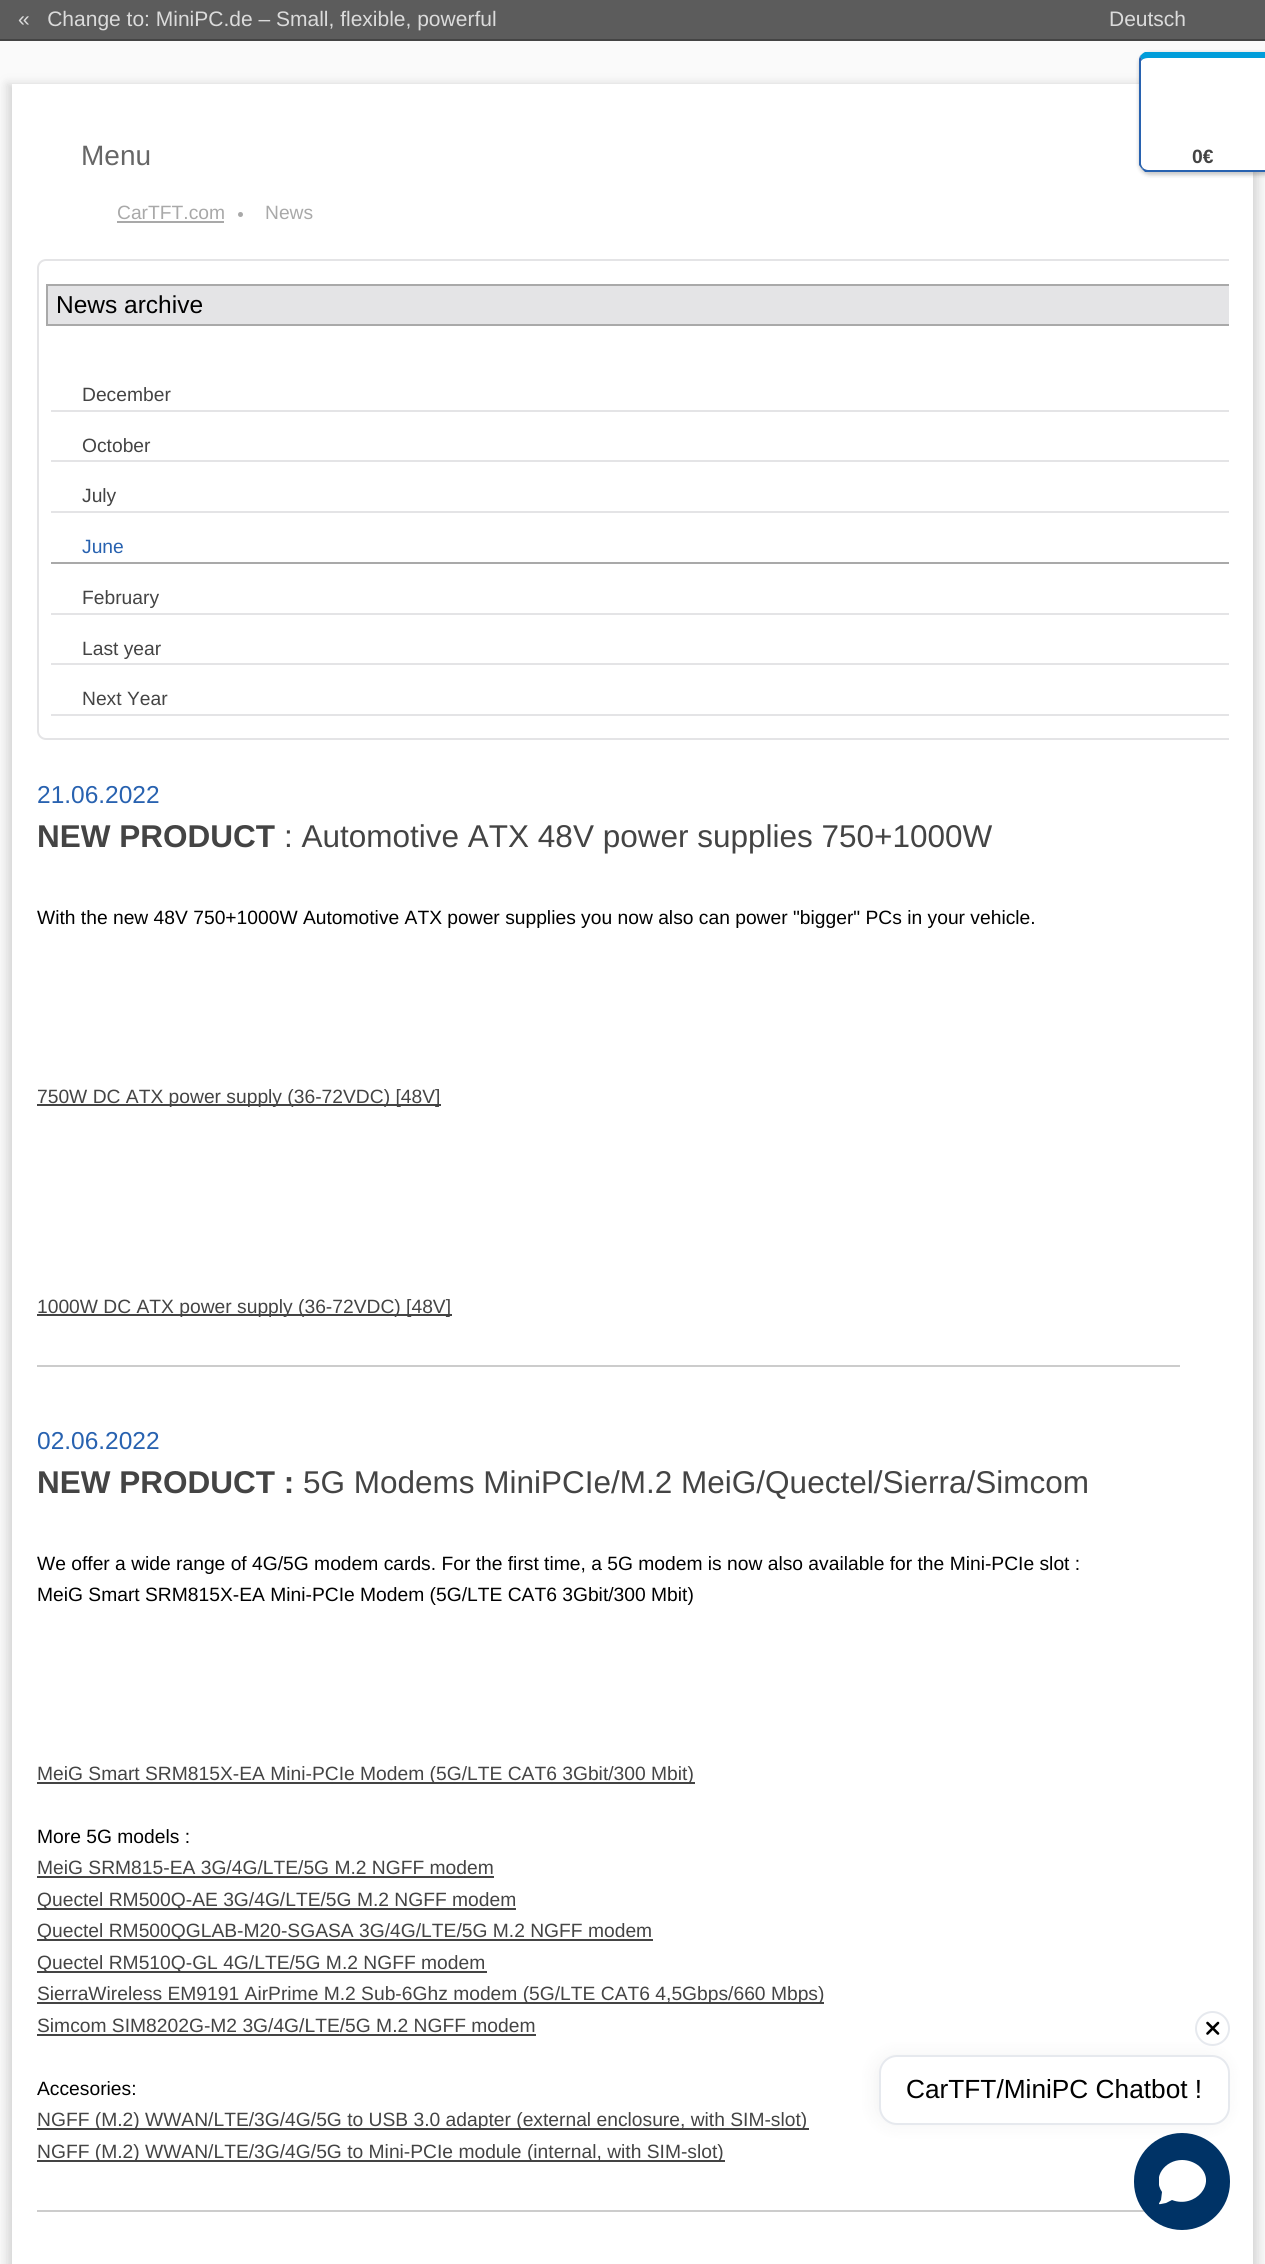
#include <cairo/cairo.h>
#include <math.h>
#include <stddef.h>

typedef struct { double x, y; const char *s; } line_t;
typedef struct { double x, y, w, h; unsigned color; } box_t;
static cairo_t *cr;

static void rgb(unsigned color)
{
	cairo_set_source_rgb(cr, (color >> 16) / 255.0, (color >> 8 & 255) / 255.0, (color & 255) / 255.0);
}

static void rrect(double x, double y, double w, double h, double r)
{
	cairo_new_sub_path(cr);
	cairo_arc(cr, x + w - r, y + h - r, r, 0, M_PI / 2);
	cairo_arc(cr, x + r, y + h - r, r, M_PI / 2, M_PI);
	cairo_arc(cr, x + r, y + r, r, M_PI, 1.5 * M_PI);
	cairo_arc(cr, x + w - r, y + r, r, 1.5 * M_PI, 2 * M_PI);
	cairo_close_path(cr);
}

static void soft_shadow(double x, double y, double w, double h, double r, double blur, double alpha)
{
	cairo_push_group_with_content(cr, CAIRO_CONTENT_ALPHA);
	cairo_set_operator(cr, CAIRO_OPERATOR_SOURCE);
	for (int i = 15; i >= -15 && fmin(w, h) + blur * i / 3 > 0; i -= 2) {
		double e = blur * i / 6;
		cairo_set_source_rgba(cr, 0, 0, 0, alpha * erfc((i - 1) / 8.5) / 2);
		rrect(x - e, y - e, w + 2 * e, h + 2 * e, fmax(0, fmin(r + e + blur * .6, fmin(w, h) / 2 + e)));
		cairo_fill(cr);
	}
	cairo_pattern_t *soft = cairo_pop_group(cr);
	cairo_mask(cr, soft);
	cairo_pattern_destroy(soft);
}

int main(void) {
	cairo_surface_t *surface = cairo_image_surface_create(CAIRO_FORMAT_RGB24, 1265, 2264);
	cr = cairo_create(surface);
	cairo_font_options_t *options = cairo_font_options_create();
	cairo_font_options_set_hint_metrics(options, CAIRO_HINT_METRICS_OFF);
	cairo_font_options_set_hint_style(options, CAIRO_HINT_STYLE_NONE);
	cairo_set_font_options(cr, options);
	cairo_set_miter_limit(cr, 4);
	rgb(0xfafafa);
	cairo_paint(cr);
	rgb(0x5c5c5c);
	cairo_rectangle(cr, 0, 0, 1265, 39);
	cairo_fill(cr);
	rgb(0x444444);
	cairo_rectangle(cr, 0, 39, 1265, 2);
	cairo_fill(cr);
	rgb(0x444444);
	soft_shadow(7, 84, 1251, 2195, 0, 5, 0.2);
	rgb(0xffffff);
	cairo_rectangle(cr, 12, 84, 1241, 2180);
	cairo_fill(cr);
	rgb(0xa9a9a9);
	cairo_rectangle(cr, 117, 221, 107, 2);
	cairo_fill(cr);
	cairo_arc(cr, 240.5, 214.5, 2.5, 0, 2 * M_PI);
	cairo_fill(cr);
	cairo_save(cr);
	cairo_rectangle(cr, 37, 259, 1192, 506);
	cairo_clip(cr);
	rrect(38, 260, 1204, 479, 8);
	rgb(0xe4e4e6);
	cairo_stroke(cr);
	cairo_restore(cr);
	rgb(0xe4e4e6);
	cairo_rectangle(cr, 48, 286, 1181, 38);
	cairo_fill(cr);
	cairo_save(cr);
	cairo_rectangle(cr, 37, 259, 1192, 506);
	cairo_clip(cr);
	cairo_rectangle(cr, 47, 285, 1188, 40);
	rgb(0xa9a9a9);
	cairo_stroke(cr);
	cairo_restore(cr);
	{
		static const box_t items[] = {
			{51, 410, 1178, 2, 0xe4e4e6},
			{51, 460, 1178, 2, 0xe4e4e6},
			{51, 511, 1178, 2, 0xe4e4e6},
			{51, 562, 1178, 2, 0xa9a9a9},
			{51, 613, 1178, 2, 0xe4e4e6},
			{51, 663, 1178, 2, 0xe4e4e6},
			{51, 714, 1178, 2, 0xe4e4e6},
			{37, 1365, 1143, 2, 0xcccccc},
			{37, 1104, 404, 2, 0x444444},
			{37, 1314, 415, 2, 0x444444},
			{37, 2210, 1108, 2, 0xcccccc},
			{37, 1782, 658, 2, 0x444444},
			{37, 1876, 457, 2, 0x444444},
			{37, 1908, 479, 2, 0x444444},
			{37, 1939, 616, 2, 0x444444},
			{37, 1971, 450, 2, 0x444444},
			{37, 2002, 787, 2, 0x444444},
			{37, 2034, 499, 2, 0x444444},
			{37, 2128, 772, 2, 0x444444},
			{37, 2160, 688, 2, 0x444444},
		};
		for (size_t i = 0; i < sizeof items / sizeof *items; i++) {
			rgb(items[i].color);
			cairo_rectangle(cr, items[i].x, items[i].y, items[i].w, items[i].h);
			cairo_fill(cr);
		}
	}
	rgb(0x444444);
	soft_shadow(1139, 53, 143, 122, 11, 2, 0.3);
	rgb(0xffffff);
	cairo_new_path(cr);
	cairo_move_to(cr, 1148, 58);
	cairo_line_to(cr, 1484, 58);
	cairo_curve_to(cr, 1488, 58, 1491, 59, 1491, 61);
	cairo_line_to(cr, 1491, 163);
	cairo_curve_to(cr, 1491, 167, 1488, 170, 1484, 170);
	cairo_line_to(cr, 1148, 170);
	cairo_curve_to(cr, 1144, 170, 1141, 167, 1141, 163);
	cairo_line_to(cr, 1141, 61);
	cairo_curve_to(cr, 1141, 59, 1144, 58, 1148, 58);
	cairo_close_path(cr);
	cairo_fill(cr);
	rgb(0x009dda);
	cairo_new_path(cr);
	cairo_move_to(cr, 1148, 58);
	cairo_curve_to(cr, 1145, 58, 1143, 59, 1142, 60);
	cairo_line_to(cr, 1140, 56);
	cairo_curve_to(cr, 1142, 54, 1143, 53, 1145, 52);
	cairo_line_to(cr, 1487, 52);
	cairo_curve_to(cr, 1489, 53, 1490, 54, 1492, 56);
	cairo_line_to(cr, 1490, 60);
	cairo_curve_to(cr, 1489, 59, 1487, 58, 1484, 58);
	cairo_close_path(cr);
	cairo_fill(cr);
	rgb(0x2862b0);
	cairo_new_path(cr);
	cairo_move_to(cr, 1145, 172);
	cairo_line_to(cr, 1142, 169);
	cairo_line_to(cr, 1143, 168);
	cairo_curve_to(cr, 1144, 169, 1146, 170, 1148, 170);
	cairo_line_to(cr, 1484, 170);
	cairo_curve_to(cr, 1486, 170, 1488, 169, 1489, 168);
	cairo_line_to(cr, 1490, 169);
	cairo_line_to(cr, 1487, 172);
	cairo_close_path(cr);
	cairo_fill(cr);
	cairo_new_path(cr);
	cairo_move_to(cr, 1139, 59);
	cairo_line_to(cr, 1140, 56);
	cairo_line_to(cr, 1142, 60);
	cairo_line_to(cr, 1141, 61);
	cairo_line_to(cr, 1141, 164);
	cairo_curve_to(cr, 1141, 165, 1142, 167, 1143, 168);
	cairo_line_to(cr, 1142, 169);
	cairo_line_to(cr, 1139, 165);
	cairo_close_path(cr);
	cairo_fill(cr);
	rgb(0x003366);
	rrect(1134, 2133, 96, 97, 48);
	cairo_fill(cr);
	rgb(0x000000);
	soft_shadow(875, 2055, 352, 70, 18, 9, 0.05);
	cairo_arc(cr, 1212.5, 2028.5, 16.5, 0, 2 * M_PI);
	rgb(0xe6e9ee);
	cairo_stroke(cr);
	cairo_new_path(cr);
	cairo_move_to(cr, 1207.5, 2033.5);
	cairo_line_to(cr, 1218, 2023);
	cairo_move_to(cr, 1207.5, 2023);
	cairo_line_to(cr, 1218, 2033.5);
	rgb(0x000000);
	cairo_set_line_width(cr, 2.6);
	cairo_set_line_cap(cr, CAIRO_LINE_CAP_ROUND);
	cairo_set_line_join(cr, CAIRO_LINE_JOIN_ROUND);
	cairo_stroke(cr);
	rgb(0xffffff);
	rrect(880, 2056, 349, 68, 17);
	cairo_fill_preserve(cr);
	rgb(0xe6e9ee);
	cairo_set_line_width(cr, 2);
	cairo_set_line_cap(cr, CAIRO_LINE_CAP_BUTT);
	cairo_set_line_join(cr, CAIRO_LINE_JOIN_MITER);
	cairo_stroke(cr);
	cairo_save(cr);
	cairo_rectangle(cr, 1159, 2158, 47, 47);
	cairo_clip(cr);
	rgb(0xffffff);
	cairo_new_path(cr);
	cairo_move_to(cr, 1182, 2160);
	cairo_curve_to(cr, 1165, 2160, 1152, 2177, 1162, 2192);
	cairo_line_to(cr, 1161, 2200);
	cairo_curve_to(cr, 1160, 2202, 1157, 2205, 1161, 2204);
	cairo_line_to(cr, 1166, 2203);
	cairo_line_to(cr, 1172, 2200);
	cairo_curve_to(cr, 1195, 2209, 1218, 2183, 1199, 2166);
	cairo_curve_to(cr, 1194, 2162, 1188, 2160, 1182, 2160);
	cairo_close_path(cr);
	cairo_fill(cr);
	cairo_restore(cr);
	cairo_select_font_face(cr, "Liberation Sans", CAIRO_FONT_SLANT_NORMAL, CAIRO_FONT_WEIGHT_NORMAL);
	cairo_set_font_size(cr, 21);
	rgb(0xdbdbdb);
	cairo_move_to(cr, 18, 26);
	cairo_show_text(cr, "«   Change to: MiniPC.de – Small, flexible, powerful");
	cairo_move_to(cr, 1109, 26);
	cairo_show_text(cr, "Deutsch");
	cairo_set_font_size(cr, 28);
	rgb(0x666666);
	cairo_move_to(cr, 81, 165);
	cairo_show_text(cr, "Menu");
	cairo_set_font_size(cr, 19.25);
	rgb(0xa9a9a9);
	cairo_move_to(cr, 117, 219);
	cairo_show_text(cr, "CarTFT.com");
	cairo_move_to(cr, 265, 219);
	cairo_show_text(cr, "News");
	cairo_set_font_size(cr, 24.5);
	rgb(0x000000);
	cairo_move_to(cr, 56, 313);
	cairo_show_text(cr, "News archive");
	cairo_set_font_size(cr, 19.25);
	rgb(0x444444);
	{
		static const line_t items[] = {
			{82, 401, "December"},
			{82, 452, "October"},
			{82, 502, "July"},
		};
		for (size_t i = 0; i < sizeof items / sizeof *items; i++) {
			cairo_move_to(cr, items[i].x, items[i].y);
			cairo_show_text(cr, items[i].s);
		}
	}
	rgb(0x2862b0);
	cairo_move_to(cr, 82, 553);
	cairo_show_text(cr, "June");
	rgb(0x444444);
	{
		static const line_t items[] = {
			{82, 604, "February"},
			{82, 655, "Last year"},
			{82, 705, "Next Year"},
		};
		for (size_t i = 0; i < sizeof items / sizeof *items; i++) {
			cairo_move_to(cr, items[i].x, items[i].y);
			cairo_show_text(cr, items[i].s);
		}
	}
	cairo_set_font_size(cr, 24.5);
	rgb(0x2862b0);
	cairo_move_to(cr, 37, 803);
	cairo_show_text(cr, "21.06.2022");
	cairo_select_font_face(cr, "Liberation Sans", CAIRO_FONT_SLANT_NORMAL, CAIRO_FONT_WEIGHT_BOLD);
	cairo_set_font_size(cr, 31.5);
	rgb(0x444444);
	cairo_move_to(cr, 37, 847);
	cairo_show_text(cr, "NEW PRODUCT");
	cairo_select_font_face(cr, "Liberation Sans", CAIRO_FONT_SLANT_NORMAL, CAIRO_FONT_WEIGHT_NORMAL);
	cairo_move_to(cr, 284, 847);
	cairo_show_text(cr, ": Automotive ATX 48V power supplies 750+1000W");
	cairo_set_font_size(cr, 19.25);
	rgb(0x000000);
	cairo_move_to(cr, 37, 924);
	cairo_show_text(cr, "With the new 48V 750+1000W Automotive ATX power supplies you now also can power \"bigger\" PCs in your vehicle.");
	rgb(0x444444);
	cairo_move_to(cr, 37, 1103);
	cairo_show_text(cr, "750W DC ATX power supply (36-72VDC) [48V]");
	cairo_move_to(cr, 37, 1313);
	cairo_show_text(cr, "1000W DC ATX power supply (36-72VDC) [48V]");
	cairo_set_font_size(cr, 24.5);
	rgb(0x2862b0);
	cairo_move_to(cr, 37, 1449);
	cairo_show_text(cr, "02.06.2022");
	cairo_select_font_face(cr, "Liberation Sans", CAIRO_FONT_SLANT_NORMAL, CAIRO_FONT_WEIGHT_BOLD);
	cairo_set_font_size(cr, 31.5);
	rgb(0x444444);
	cairo_move_to(cr, 37, 1493);
	cairo_show_text(cr, "NEW PRODUCT :");
	cairo_select_font_face(cr, "Liberation Sans", CAIRO_FONT_SLANT_NORMAL, CAIRO_FONT_WEIGHT_NORMAL);
	cairo_move_to(cr, 303, 1493);
	cairo_show_text(cr, "5G Modems MiniPCIe/M.2 MeiG/Quectel/Sierra/Simcom");
	cairo_set_font_size(cr, 19.25);
	rgb(0x000000);
	cairo_move_to(cr, 37, 1570);
	cairo_show_text(cr, "We offer a wide range of 4G/5G modem cards. For the first time, a 5G modem is now also available for the Mini-PCIe slot :");
	cairo_move_to(cr, 37, 1601);
	cairo_show_text(cr, "MeiG Smart SRM815X-EA Mini-PCIe Modem (5G/LTE CAT6 3Gbit/300 Mbit)");
	rgb(0x444444);
	cairo_move_to(cr, 37, 1780);
	cairo_show_text(cr, "MeiG Smart SRM815X-EA Mini-PCIe Modem (5G/LTE CAT6 3Gbit/300 Mbit)");
	rgb(0x000000);
	cairo_move_to(cr, 37, 1843);
	cairo_show_text(cr, "More 5G models :");
	rgb(0x444444);
	{
		static const line_t items[] = {
			{37, 1874, "MeiG SRM815-EA 3G/4G/LTE/5G M.2 NGFF modem"},
			{37, 1906, "Quectel RM500Q-AE 3G/4G/LTE/5G M.2 NGFF modem"},
			{37, 1937, "Quectel RM500QGLAB-M20-SGASA 3G/4G/LTE/5G M.2 NGFF modem"},
			{37, 1969, "Quectel RM510Q-GL 4G/LTE/5G M.2 NGFF modem"},
			{37, 2000, "SierraWireless EM9191 AirPrime M.2 Sub-6Ghz modem (5G/LTE CAT6 4,5Gbps/660 Mbps)"},
			{37, 2032, "Simcom SIM8202G-M2 3G/4G/LTE/5G M.2 NGFF modem"},
		};
		for (size_t i = 0; i < sizeof items / sizeof *items; i++) {
			cairo_move_to(cr, items[i].x, items[i].y);
			cairo_show_text(cr, items[i].s);
		}
	}
	rgb(0x000000);
	cairo_move_to(cr, 37, 2095);
	cairo_show_text(cr, "Accesories:");
	rgb(0x444444);
	cairo_move_to(cr, 37, 2126);
	cairo_show_text(cr, "NGFF (M.2) WWAN/LTE/3G/4G/5G to USB 3.0 adapter (external enclosure, with SIM-slot)");
	cairo_move_to(cr, 37, 2158);
	cairo_show_text(cr, "NGFF (M.2) WWAN/LTE/3G/4G/5G to Mini-PCIe module (internal, with SIM-slot)");
	cairo_select_font_face(cr, "Liberation Sans", CAIRO_FONT_SLANT_NORMAL, CAIRO_FONT_WEIGHT_BOLD);
	cairo_move_to(cr, 1192, 163);
	cairo_show_text(cr, "0€");
	cairo_select_font_face(cr, "Liberation Sans", CAIRO_FONT_SLANT_NORMAL, CAIRO_FONT_WEIGHT_NORMAL);
	cairo_set_font_size(cr, 26.25);
	rgb(0x000000);
	cairo_move_to(cr, 906, 2098);
	cairo_show_text(cr, "CarTFT/MiniPC Chatbot !");
	cairo_surface_write_to_png(surface, "page.png");
	cairo_font_options_destroy(options);
	cairo_destroy(cr);
	cairo_surface_destroy(surface);
	return 0;
}
